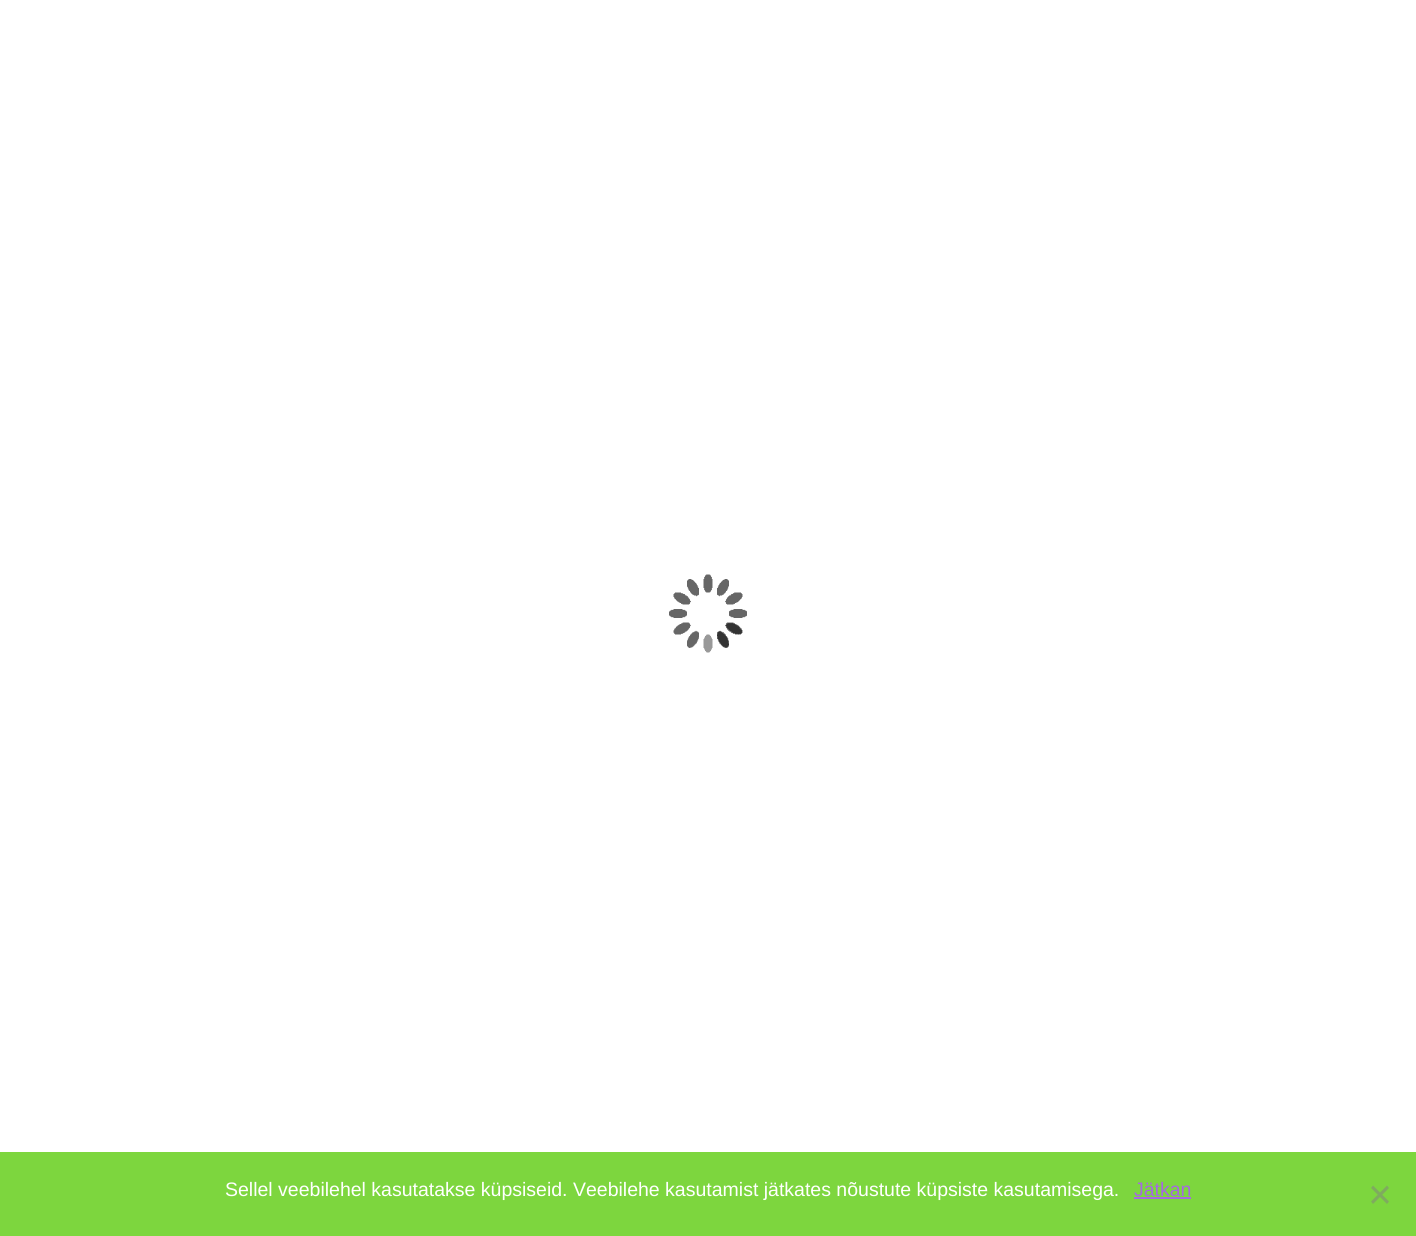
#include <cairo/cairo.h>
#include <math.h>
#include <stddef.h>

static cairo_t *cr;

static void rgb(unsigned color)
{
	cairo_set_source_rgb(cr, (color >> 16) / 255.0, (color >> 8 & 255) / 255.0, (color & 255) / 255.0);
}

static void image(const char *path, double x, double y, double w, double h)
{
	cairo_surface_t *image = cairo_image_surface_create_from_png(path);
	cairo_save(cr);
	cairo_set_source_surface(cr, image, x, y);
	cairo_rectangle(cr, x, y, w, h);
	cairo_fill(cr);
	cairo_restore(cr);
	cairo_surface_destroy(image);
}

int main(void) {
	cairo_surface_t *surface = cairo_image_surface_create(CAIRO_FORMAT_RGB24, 1416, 1236);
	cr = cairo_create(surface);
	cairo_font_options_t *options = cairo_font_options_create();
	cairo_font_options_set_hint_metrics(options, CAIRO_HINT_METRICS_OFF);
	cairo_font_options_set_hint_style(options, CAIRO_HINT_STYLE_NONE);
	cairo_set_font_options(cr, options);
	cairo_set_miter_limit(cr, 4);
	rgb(0xffffff);
	cairo_paint(cr);
	image("img/1.png", 669, 574, 78, 79);
	rgb(0x7dd63e);
	cairo_rectangle(cr, 0, 1152, 1416, 84);
	cairo_fill(cr);
	rgb(0xa568e2);
	cairo_rectangle(cr, 1134, 1197, 57, 2);
	cairo_fill(cr);
	rgb(0x7fab5f);
	cairo_new_path(cr);
	cairo_move_to(cr, 1387, 1185.5);
	cairo_line_to(cr, 1389, 1188);
	cairo_line_to(cr, 1373, 1204);
	cairo_line_to(cr, 1371, 1201.5);
	cairo_close_path(cr);
	cairo_fill(cr);
	cairo_new_path(cr);
	cairo_move_to(cr, 1371, 1188);
	cairo_line_to(cr, 1373, 1185.5);
	cairo_line_to(cr, 1389, 1201.5);
	cairo_line_to(cr, 1387, 1204);
	cairo_close_path(cr);
	cairo_fill(cr);
	cairo_select_font_face(cr, "Liberation Sans", CAIRO_FONT_SLANT_NORMAL, CAIRO_FONT_WEIGHT_NORMAL);
	cairo_set_font_size(cr, 19.5);
	rgb(0xffffff);
	cairo_move_to(cr, 225, 1196);
	cairo_show_text(cr, "Sellel veebilehel kasutatakse küpsiseid. Veebilehe kasutamist jätkates nõustute küpsiste kasutamisega.");
	rgb(0xa568e2);
	cairo_move_to(cr, 1134, 1196);
	cairo_show_text(cr, "Jätkan");
	cairo_surface_write_to_png(surface, "page.png");
	cairo_font_options_destroy(options);
	cairo_destroy(cr);
	cairo_surface_destroy(surface);
	return 0;
}
